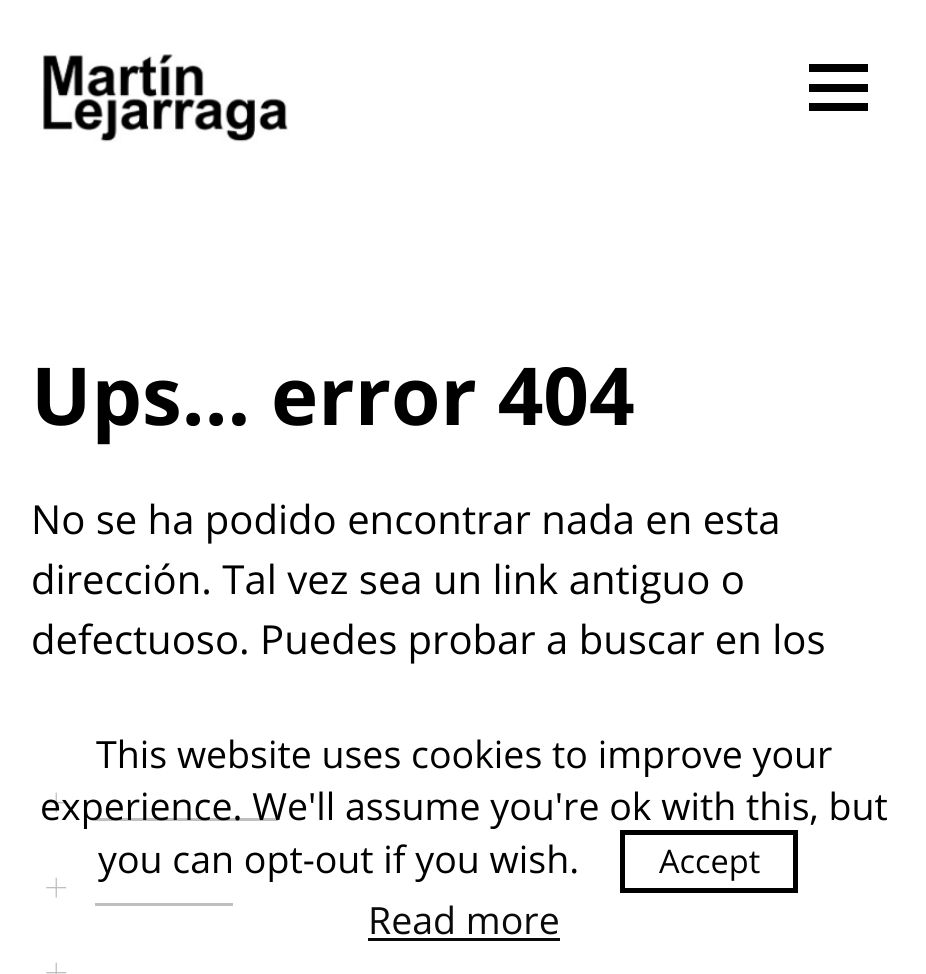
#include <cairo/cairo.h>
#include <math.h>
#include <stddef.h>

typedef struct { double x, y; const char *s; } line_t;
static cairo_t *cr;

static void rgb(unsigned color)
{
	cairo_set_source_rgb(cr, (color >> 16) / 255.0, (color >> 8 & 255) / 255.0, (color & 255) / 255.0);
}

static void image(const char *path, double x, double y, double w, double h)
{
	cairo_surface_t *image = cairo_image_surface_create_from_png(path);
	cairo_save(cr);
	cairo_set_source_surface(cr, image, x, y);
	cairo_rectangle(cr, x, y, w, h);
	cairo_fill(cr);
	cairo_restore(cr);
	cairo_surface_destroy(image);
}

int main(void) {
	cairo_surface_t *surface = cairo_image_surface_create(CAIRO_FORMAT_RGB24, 926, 974);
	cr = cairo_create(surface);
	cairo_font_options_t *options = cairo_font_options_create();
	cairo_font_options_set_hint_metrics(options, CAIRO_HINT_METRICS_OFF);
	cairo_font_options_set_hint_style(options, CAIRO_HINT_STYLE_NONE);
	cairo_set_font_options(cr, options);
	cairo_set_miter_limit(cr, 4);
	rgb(0xffffff);
	cairo_paint(cr);
	image("img/1.png", 43, 54, 246, 88);
	rgb(0x000000);
	cairo_new_path(cr);
	cairo_move_to(cr, 868, 64);
	cairo_line_to(cr, 868, 72);
	cairo_line_to(cr, 809, 72);
	cairo_line_to(cr, 809, 64);
	cairo_close_path(cr);
	cairo_move_to(cr, 809, 92);
	cairo_line_to(cr, 868, 92);
	cairo_line_to(cr, 868, 84);
	cairo_line_to(cr, 809, 84);
	cairo_close_path(cr);
	cairo_move_to(cr, 809, 111);
	cairo_line_to(cr, 868, 111);
	cairo_line_to(cr, 868, 103);
	cairo_line_to(cr, 809, 103);
	cairo_close_path(cr);
	cairo_fill(cr);
	image("img/2.png", 46, 792, 21, 21);
	cairo_rectangle(cr, 95, 818, 183, 3);
	cairo_fill(cr);
	image("img/2.png", 46, 877, 21, 21);
	cairo_rectangle(cr, 95, 903, 138, 3);
	cairo_fill(cr);
	image("img/3.png", 46, 962, 21, 12);
	cairo_set_source_rgba(cr, 1, 1, 1, 0.75);
	cairo_rectangle(cr, 46, 792, 232, 182);
	cairo_fill(cr);
	cairo_rectangle(cr, 622.5, 832.5, 173, 58);
	rgb(0x000000);
	cairo_set_line_width(cr, 5);
	cairo_stroke(cr);
	rgb(0x0a0a0a);
	cairo_rectangle(cr, 368, 938, 192, 3);
	cairo_fill(cr);
	cairo_select_font_face(cr, "Open Sans", CAIRO_FONT_SLANT_NORMAL, CAIRO_FONT_WEIGHT_BOLD);
	cairo_set_font_size(cr, 80);
	rgb(0x000000);
	cairo_move_to(cr, 31, 425);
	cairo_show_text(cr, "Ups... error 404");
	cairo_select_font_face(cr, "Open Sans", CAIRO_FONT_SLANT_NORMAL, CAIRO_FONT_WEIGHT_NORMAL);
	cairo_set_font_size(cr, 40);
	{
		static const line_t items[] = {
			{31, 534, "No se ha podido encontrar nada en esta"},
			{31, 594, "dirección. Tal vez sea un link antiguo o"},
			{31, 654, "defectuoso. Puedes probar a buscar en los"},
		};
		for (size_t i = 0; i < sizeof items / sizeof *items; i++) {
			cairo_move_to(cr, items[i].x, items[i].y);
			cairo_show_text(cr, items[i].s);
		}
	}
	cairo_set_font_size(cr, 37.5);
	{
		static const line_t items[] = {
			{96, 768, "This website uses cookies to improve your"},
			{40, 820, "experience. We'll assume you're ok with this, but"},
			{98, 873, "you can opt-out if you wish."},
		};
		for (size_t i = 0; i < sizeof items / sizeof *items; i++) {
			cairo_move_to(cr, items[i].x, items[i].y);
			cairo_show_text(cr, items[i].s);
		}
	}
	cairo_set_font_size(cr, 32.5);
	cairo_move_to(cr, 659, 873);
	cairo_show_text(cr, "Accept");
	cairo_set_font_size(cr, 37.5);
	rgb(0x0a0a0a);
	cairo_move_to(cr, 368, 934);
	cairo_show_text(cr, "Read more");
	cairo_surface_write_to_png(surface, "page.png");
	cairo_font_options_destroy(options);
	cairo_destroy(cr);
	cairo_surface_destroy(surface);
	return 0;
}
